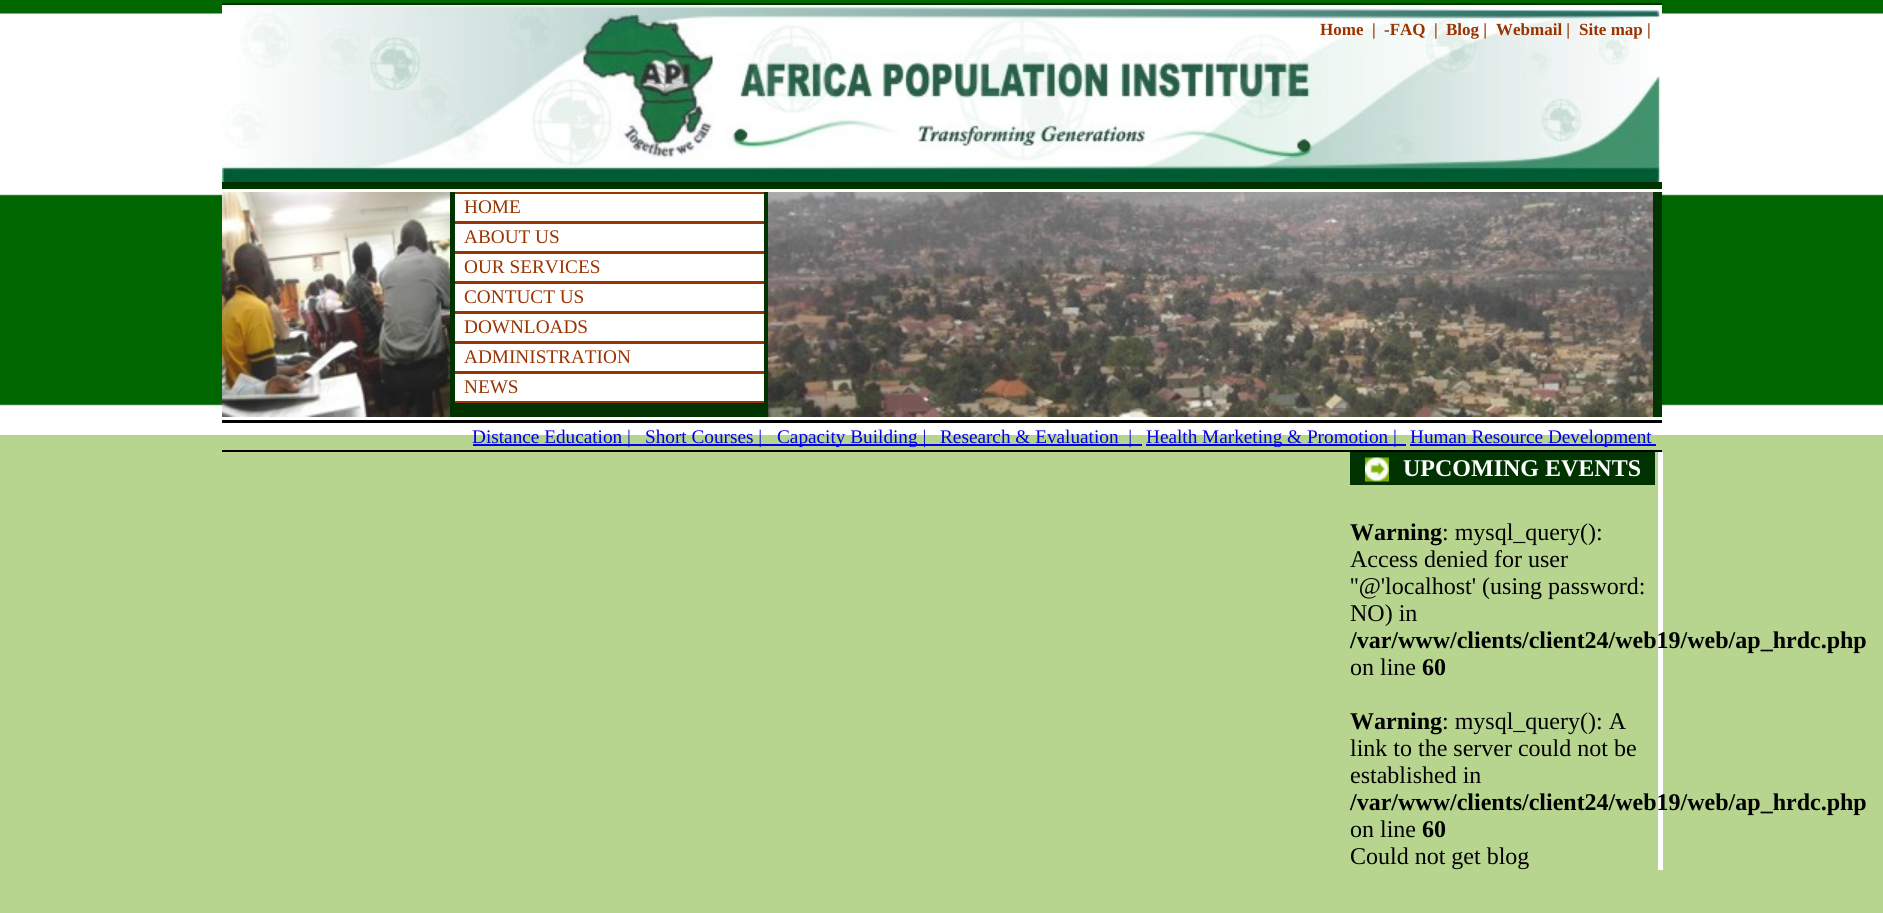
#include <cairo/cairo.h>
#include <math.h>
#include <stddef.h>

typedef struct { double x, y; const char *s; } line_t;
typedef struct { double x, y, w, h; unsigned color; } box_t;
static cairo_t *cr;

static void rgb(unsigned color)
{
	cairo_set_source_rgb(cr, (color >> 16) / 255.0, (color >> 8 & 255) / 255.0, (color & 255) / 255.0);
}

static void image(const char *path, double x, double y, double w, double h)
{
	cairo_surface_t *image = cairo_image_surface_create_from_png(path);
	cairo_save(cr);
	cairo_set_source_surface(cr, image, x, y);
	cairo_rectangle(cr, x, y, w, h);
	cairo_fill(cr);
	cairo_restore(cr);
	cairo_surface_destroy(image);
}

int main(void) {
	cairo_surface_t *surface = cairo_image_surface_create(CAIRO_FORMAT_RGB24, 1883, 913);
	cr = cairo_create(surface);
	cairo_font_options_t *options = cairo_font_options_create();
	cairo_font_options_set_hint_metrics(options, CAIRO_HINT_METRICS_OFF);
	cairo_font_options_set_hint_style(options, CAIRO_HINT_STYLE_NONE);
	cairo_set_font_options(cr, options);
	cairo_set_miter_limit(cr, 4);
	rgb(0xb8d58f);
	cairo_paint(cr);
	image("img/1.png", 0, 0, 1883, 435);
	rgb(0xffffff);
	cairo_rectangle(cr, 1660, 5, 2, 9);
	cairo_fill(cr);
	image("img/2.png", 222, 5, 1439, 177);
	{
		static const box_t items[] = {
			{222, 3, 1440, 2, 0x003300},
			{222, 182, 1440, 7, 0x003300},
			{450, 192, 1212, 225, 0x003300},
		};
		for (size_t i = 0; i < sizeof items / sizeof *items; i++) {
			rgb(items[i].color);
			cairo_rectangle(cr, items[i].x, items[i].y, items[i].w, items[i].h);
			cairo_fill(cr);
		}
	}
	image("img/3.png", 222, 192, 228, 225);
	{
		static const box_t items[] = {
			{455, 194, 309, 27, 0xffffff},
			{455, 192, 309, 2, 0x993300},
			{455, 221, 309, 3, 0x993300},
			{455, 224, 309, 27, 0xffffff},
			{455, 251, 309, 3, 0x993300},
			{455, 254, 309, 27, 0xffffff},
			{455, 281, 309, 3, 0x993300},
			{455, 284, 309, 27, 0xffffff},
			{455, 311, 309, 3, 0x993300},
			{455, 314, 309, 27, 0xffffff},
			{455, 341, 309, 3, 0x993300},
			{455, 344, 309, 27, 0xffffff},
			{455, 371, 309, 3, 0x993300},
			{455, 374, 309, 27, 0xffffff},
			{455, 401, 309, 2, 0x993300},
		};
		for (size_t i = 0; i < sizeof items / sizeof *items; i++) {
			rgb(items[i].color);
			cairo_rectangle(cr, items[i].x, items[i].y, items[i].w, items[i].h);
			cairo_fill(cr);
		}
	}
	image("img/4.png", 768, 192, 885, 225);
	{
		static const box_t items[] = {
			{222, 420, 1440, 3, 0x000000},
			{222, 450, 1440, 2, 0x000000},
			{473, 444, 669, 2, 0x0000ee},
			{1146, 444, 260, 2, 0x0000ee},
			{1410, 444, 246, 2, 0x0000ee},
			{1658, 452, 5, 418, 0xffffff},
			{1350, 452, 305, 33, 0x003300},
		};
		for (size_t i = 0; i < sizeof items / sizeof *items; i++) {
			rgb(items[i].color);
			cairo_rectangle(cr, items[i].x, items[i].y, items[i].w, items[i].h);
			cairo_fill(cr);
		}
	}
	image("img/5.png", 1365, 457, 24, 25);
	cairo_select_font_face(cr, "Liberation Serif", CAIRO_FONT_SLANT_NORMAL, CAIRO_FONT_WEIGHT_BOLD);
	cairo_set_font_size(cr, 17);
	rgb(0x993300);
	{
		static const line_t items[] = {
			{1320, 35, "Home  |"},
			{1384, 35, "-FAQ  |"},
			{1446, 35, "Blog |"},
			{1496, 35, "Webmail |"},
			{1579, 35, "Site map |"},
		};
		for (size_t i = 0; i < sizeof items / sizeof *items; i++) {
			cairo_move_to(cr, items[i].x, items[i].y);
			cairo_show_text(cr, items[i].s);
		}
	}
	cairo_select_font_face(cr, "Liberation Serif", CAIRO_FONT_SLANT_NORMAL, CAIRO_FONT_WEIGHT_NORMAL);
	cairo_set_font_size(cr, 19.25);
	{
		static const line_t items[] = {
			{464, 213, "HOME"},
			{464, 243, "ABOUT US"},
			{464, 273, "OUR SERVICES"},
			{464, 303, "CONTUCT US"},
			{464, 333, "DOWNLOADS"},
			{464, 363, "ADMINISTRATION"},
			{464, 393, "NEWS"},
		};
		for (size_t i = 0; i < sizeof items / sizeof *items; i++) {
			cairo_move_to(cr, items[i].x, items[i].y);
			cairo_show_text(cr, items[i].s);
		}
	}
	rgb(0x0000ee);
	{
		static const line_t items[] = {
			{472, 443, "Distance Education |"},
			{645, 443, "Short Courses |"},
			{777, 443, "Capacity Building |"},
			{940, 443, "Research & Evaluation  |"},
			{1146, 443, "Health Marketing & Promotion |"},
			{1410, 443, "Human Resource Development"},
		};
		for (size_t i = 0; i < sizeof items / sizeof *items; i++) {
			cairo_move_to(cr, items[i].x, items[i].y);
			cairo_show_text(cr, items[i].s);
		}
	}
	cairo_select_font_face(cr, "Liberation Serif", CAIRO_FONT_SLANT_NORMAL, CAIRO_FONT_WEIGHT_BOLD);
	cairo_set_font_size(cr, 24);
	rgb(0xffffff);
	cairo_move_to(cr, 1403, 476);
	cairo_show_text(cr, "UPCOMING EVENTS");
	rgb(0x000000);
	cairo_move_to(cr, 1350, 540);
	cairo_show_text(cr, "Warning");
	cairo_select_font_face(cr, "Liberation Serif", CAIRO_FONT_SLANT_NORMAL, CAIRO_FONT_WEIGHT_NORMAL);
	{
		static const line_t items[] = {
			{1442, 540, ": mysql_query():"},
			{1350, 567, "Access denied for user"},
			{1350, 594, "''@'localhost' (using password:"},
			{1350, 621, "NO) in"},
		};
		for (size_t i = 0; i < sizeof items / sizeof *items; i++) {
			cairo_move_to(cr, items[i].x, items[i].y);
			cairo_show_text(cr, items[i].s);
		}
	}
	cairo_select_font_face(cr, "Liberation Serif", CAIRO_FONT_SLANT_NORMAL, CAIRO_FONT_WEIGHT_BOLD);
	cairo_move_to(cr, 1350, 648);
	cairo_show_text(cr, "/var/www/clients/client24/web19/web/ap_hrdc.php");
	cairo_select_font_face(cr, "Liberation Serif", CAIRO_FONT_SLANT_NORMAL, CAIRO_FONT_WEIGHT_NORMAL);
	cairo_move_to(cr, 1350, 675);
	cairo_show_text(cr, "on line");
	cairo_select_font_face(cr, "Liberation Serif", CAIRO_FONT_SLANT_NORMAL, CAIRO_FONT_WEIGHT_BOLD);
	cairo_move_to(cr, 1422, 675);
	cairo_show_text(cr, "60");
	cairo_move_to(cr, 1350, 729);
	cairo_show_text(cr, "Warning");
	cairo_select_font_face(cr, "Liberation Serif", CAIRO_FONT_SLANT_NORMAL, CAIRO_FONT_WEIGHT_NORMAL);
	{
		static const line_t items[] = {
			{1442, 729, ": mysql_query(): A"},
			{1350, 756, "link to the server could not be"},
			{1350, 783, "established in"},
		};
		for (size_t i = 0; i < sizeof items / sizeof *items; i++) {
			cairo_move_to(cr, items[i].x, items[i].y);
			cairo_show_text(cr, items[i].s);
		}
	}
	cairo_select_font_face(cr, "Liberation Serif", CAIRO_FONT_SLANT_NORMAL, CAIRO_FONT_WEIGHT_BOLD);
	cairo_move_to(cr, 1350, 810);
	cairo_show_text(cr, "/var/www/clients/client24/web19/web/ap_hrdc.php");
	cairo_select_font_face(cr, "Liberation Serif", CAIRO_FONT_SLANT_NORMAL, CAIRO_FONT_WEIGHT_NORMAL);
	cairo_move_to(cr, 1350, 837);
	cairo_show_text(cr, "on line");
	cairo_select_font_face(cr, "Liberation Serif", CAIRO_FONT_SLANT_NORMAL, CAIRO_FONT_WEIGHT_BOLD);
	cairo_move_to(cr, 1422, 837);
	cairo_show_text(cr, "60");
	cairo_select_font_face(cr, "Liberation Serif", CAIRO_FONT_SLANT_NORMAL, CAIRO_FONT_WEIGHT_NORMAL);
	cairo_move_to(cr, 1350, 864);
	cairo_show_text(cr, "Could not get blog");
	cairo_surface_write_to_png(surface, "page.png");
	cairo_font_options_destroy(options);
	cairo_destroy(cr);
	cairo_surface_destroy(surface);
	return 0;
}
